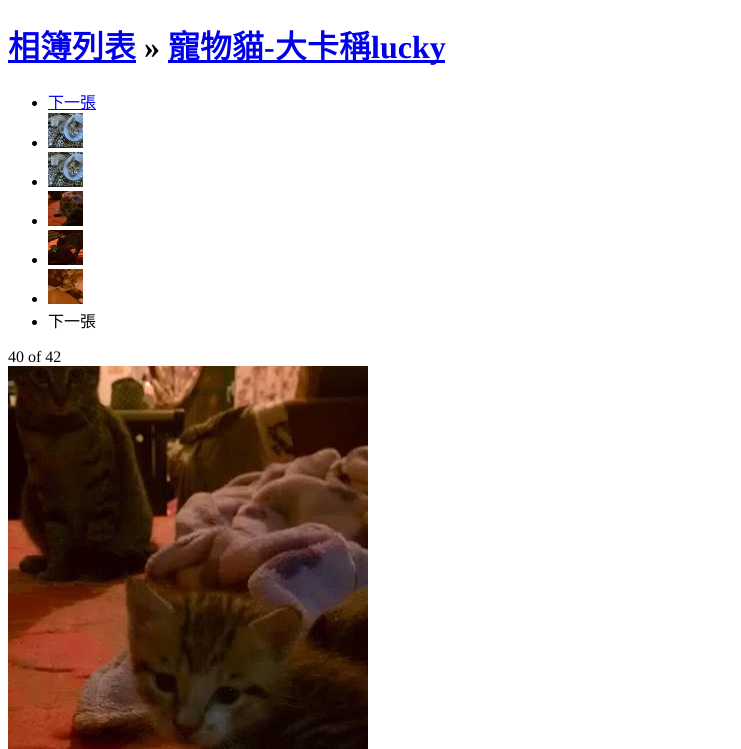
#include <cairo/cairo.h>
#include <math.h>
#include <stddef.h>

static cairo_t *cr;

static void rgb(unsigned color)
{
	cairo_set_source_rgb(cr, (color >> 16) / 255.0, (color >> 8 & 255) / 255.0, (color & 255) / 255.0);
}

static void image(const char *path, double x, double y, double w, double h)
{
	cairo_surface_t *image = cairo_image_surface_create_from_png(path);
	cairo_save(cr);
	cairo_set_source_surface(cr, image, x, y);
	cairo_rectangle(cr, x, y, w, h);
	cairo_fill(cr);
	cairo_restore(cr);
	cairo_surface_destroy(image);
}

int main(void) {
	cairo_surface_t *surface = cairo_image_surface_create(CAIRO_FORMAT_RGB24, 741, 749);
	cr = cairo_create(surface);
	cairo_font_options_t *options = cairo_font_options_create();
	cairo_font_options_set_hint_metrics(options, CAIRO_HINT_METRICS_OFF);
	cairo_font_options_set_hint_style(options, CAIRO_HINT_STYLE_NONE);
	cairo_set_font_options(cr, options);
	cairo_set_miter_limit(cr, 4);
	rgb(0xffffff);
	cairo_paint(cr);
	rgb(0x0000ee);
	cairo_rectangle(cr, 8, 60, 128, 3);
	cairo_fill(cr);
	cairo_rectangle(cr, 168, 60, 277, 3);
	cairo_fill(cr);
	rgb(0x000000);
	cairo_arc(cr, 34.5, 103.5, 2.5, 0, 2 * M_PI);
	cairo_fill(cr);
	rgb(0x0000ee);
	cairo_rectangle(cr, 48, 109, 48, 1);
	cairo_fill(cr);
	rgb(0x000000);
	cairo_arc(cr, 34.5, 143.5, 2.5, 0, 2 * M_PI);
	cairo_fill(cr);
	image("img/1.png", 48, 113, 35, 35);
	cairo_arc(cr, 34.5, 182.5, 2.5, 0, 2 * M_PI);
	cairo_fill(cr);
	image("img/2.png", 48, 152, 35, 35);
	cairo_arc(cr, 34.5, 221.5, 2.5, 0, 2 * M_PI);
	cairo_fill(cr);
	image("img/3.png", 48, 191, 35, 35);
	cairo_arc(cr, 34.5, 260.5, 2.5, 0, 2 * M_PI);
	cairo_fill(cr);
	image("img/4.png", 48, 230, 35, 35);
	cairo_arc(cr, 34.5, 299.5, 2.5, 0, 2 * M_PI);
	cairo_fill(cr);
	image("img/5.png", 48, 269, 35, 35);
	cairo_arc(cr, 34.5, 322.5, 2.5, 0, 2 * M_PI);
	cairo_fill(cr);
	image("img/6.png", 8, 366, 360, 383);
	cairo_select_font_face(cr, "Noto Sans CJK TC", CAIRO_FONT_SLANT_NORMAL, CAIRO_FONT_WEIGHT_BOLD);
	cairo_set_font_size(cr, 32);
	rgb(0x0000ee);
	cairo_move_to(cr, 8, 58);
	cairo_show_text(cr, "相簿列表");
	cairo_select_font_face(cr, "Liberation Serif", CAIRO_FONT_SLANT_NORMAL, CAIRO_FONT_WEIGHT_BOLD);
	rgb(0x000000);
	cairo_move_to(cr, 144, 58);
	cairo_show_text(cr, "»");
	cairo_select_font_face(cr, "Noto Sans CJK TC", CAIRO_FONT_SLANT_NORMAL, CAIRO_FONT_WEIGHT_BOLD);
	rgb(0x0000ee);
	cairo_move_to(cr, 168, 58);
	cairo_show_text(cr, "寵物貓");
	cairo_select_font_face(cr, "Liberation Serif", CAIRO_FONT_SLANT_NORMAL, CAIRO_FONT_WEIGHT_BOLD);
	cairo_move_to(cr, 264, 58);
	cairo_show_text(cr, "-");
	cairo_select_font_face(cr, "Noto Sans CJK TC", CAIRO_FONT_SLANT_NORMAL, CAIRO_FONT_WEIGHT_BOLD);
	cairo_move_to(cr, 275, 58);
	cairo_show_text(cr, "大卡稱");
	cairo_select_font_face(cr, "Liberation Serif", CAIRO_FONT_SLANT_NORMAL, CAIRO_FONT_WEIGHT_BOLD);
	cairo_move_to(cr, 371, 58);
	cairo_show_text(cr, "lucky");
	cairo_select_font_face(cr, "Noto Sans CJK TC", CAIRO_FONT_SLANT_NORMAL, CAIRO_FONT_WEIGHT_NORMAL);
	cairo_set_font_size(cr, 16);
	cairo_move_to(cr, 48, 108);
	cairo_show_text(cr, "下一張");
	rgb(0x000000);
	cairo_move_to(cr, 48, 327);
	cairo_show_text(cr, "下一張");
	cairo_select_font_face(cr, "Liberation Serif", CAIRO_FONT_SLANT_NORMAL, CAIRO_FONT_WEIGHT_NORMAL);
	cairo_move_to(cr, 8, 362);
	cairo_show_text(cr, "40 of 42");
	cairo_surface_write_to_png(surface, "page.png");
	cairo_font_options_destroy(options);
	cairo_destroy(cr);
	cairo_surface_destroy(surface);
	return 0;
}
